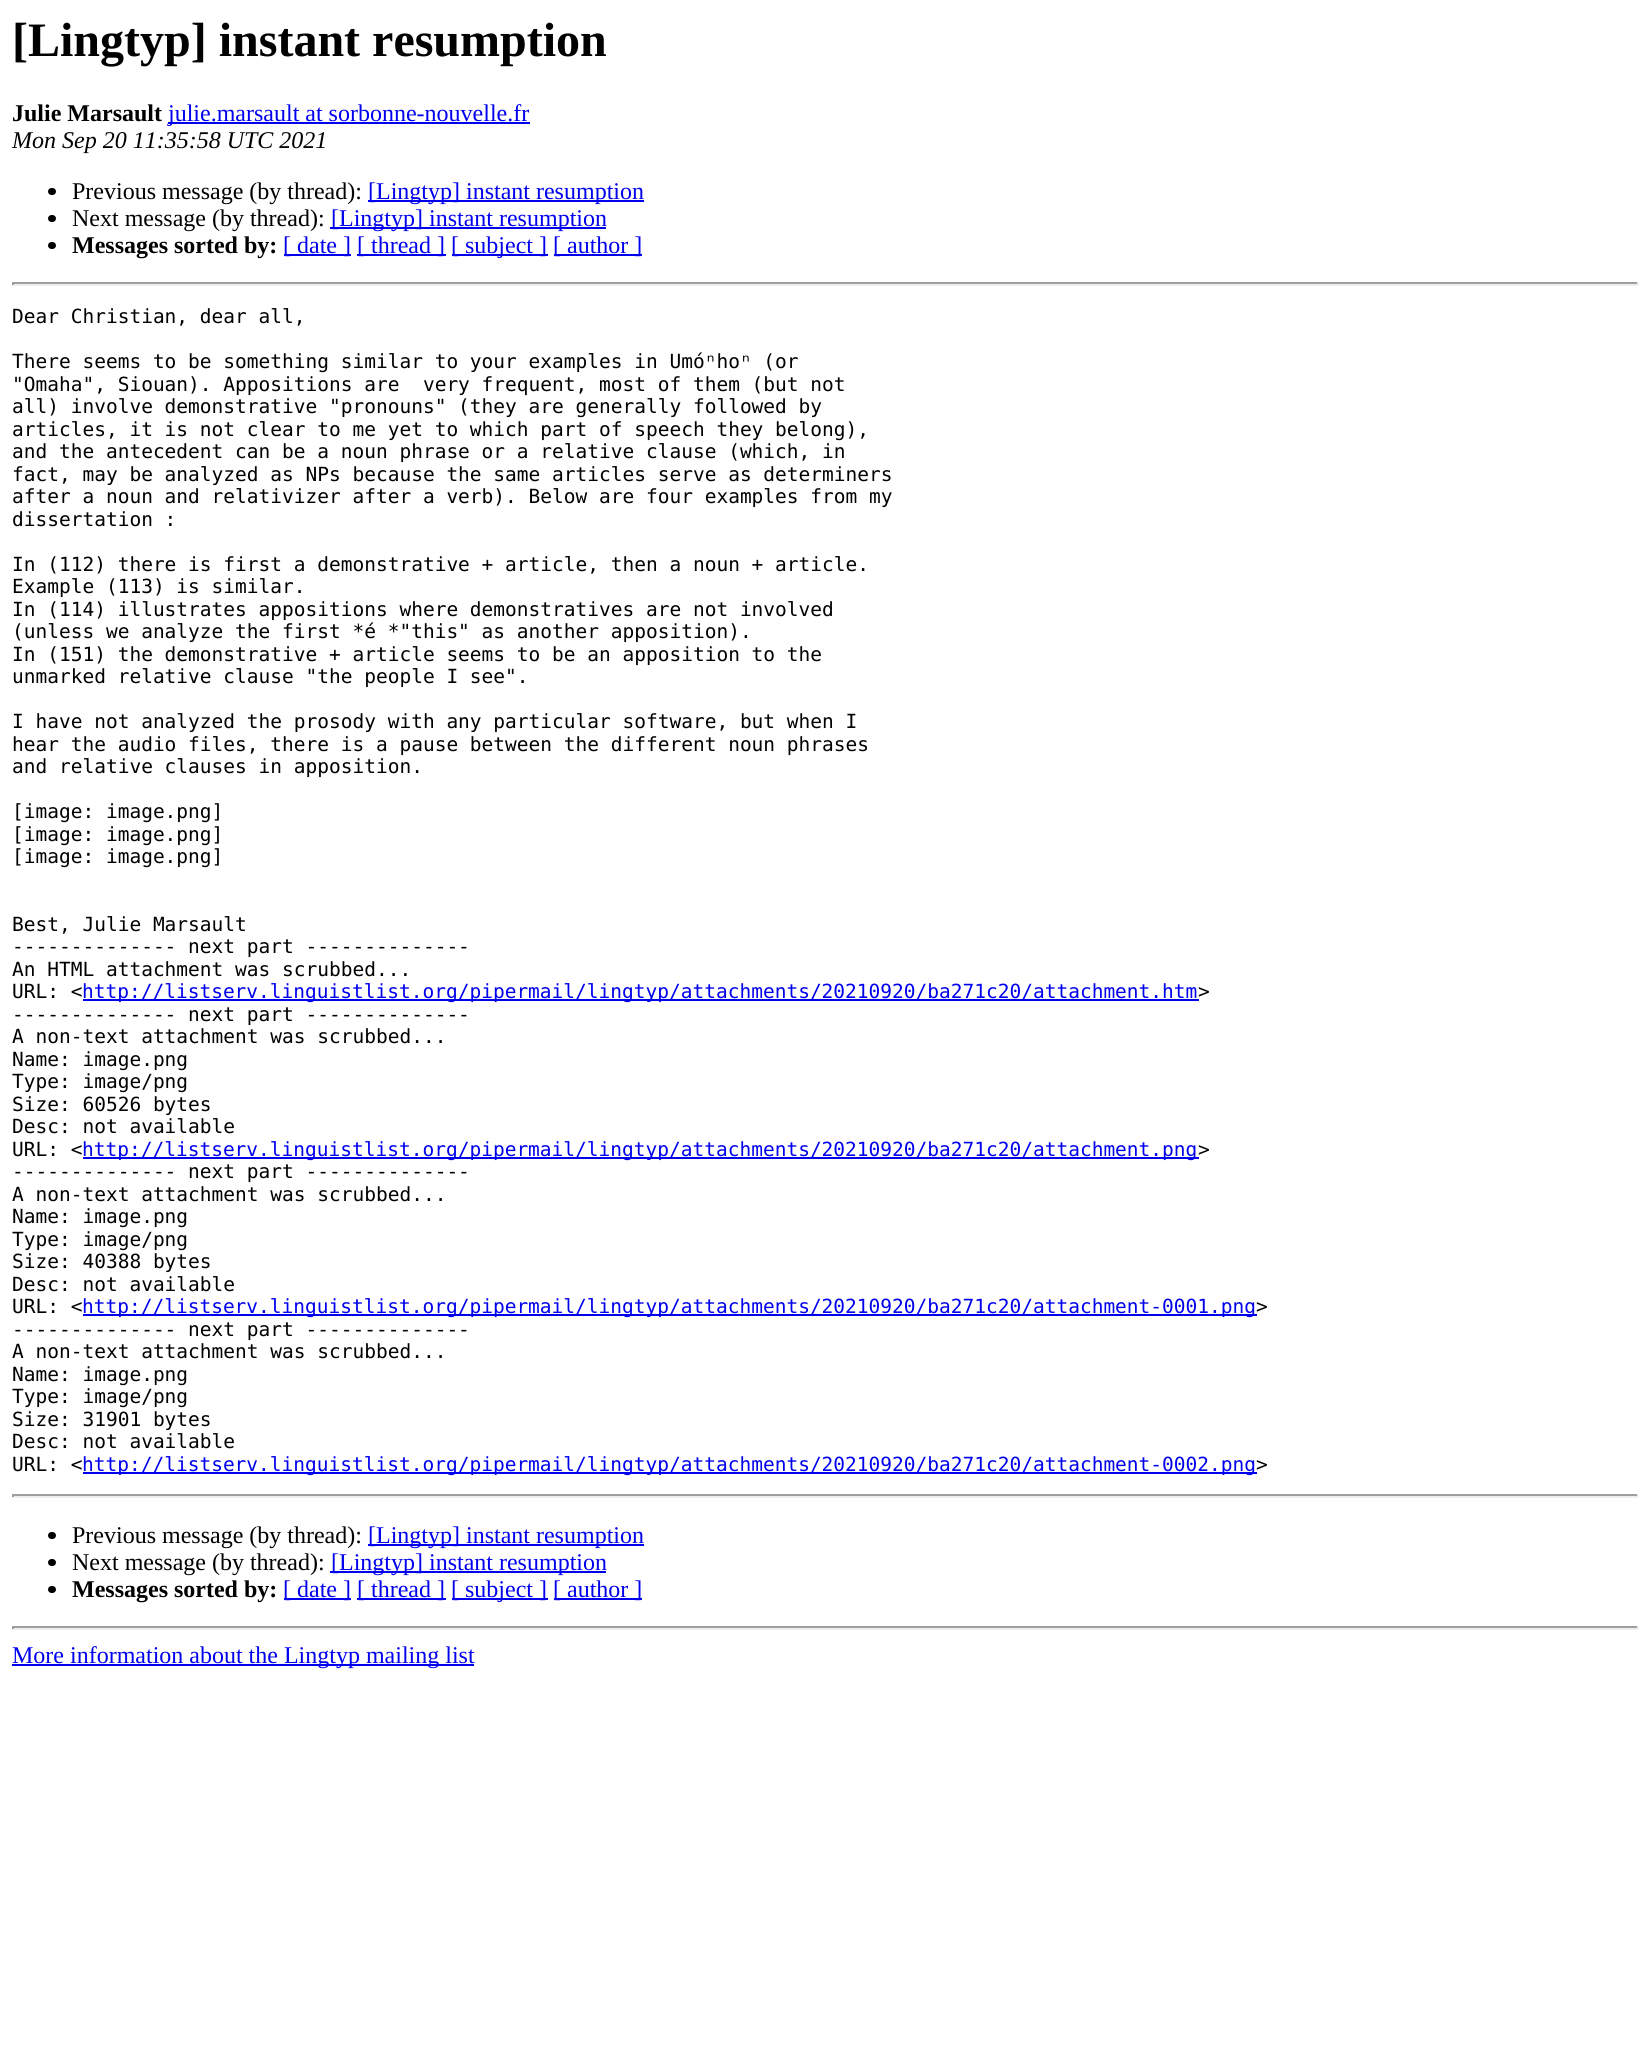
#include <cairo/cairo.h>
#include <math.h>
#include <stddef.h>

typedef struct { double x, y; const char *s; } line_t;
typedef struct { double x, y, w, h; unsigned color; } box_t;
static cairo_t *cr;

static void rgb(unsigned color)
{
	cairo_set_source_rgb(cr, (color >> 16) / 255.0, (color >> 8 & 255) / 255.0, (color & 255) / 255.0);
}

static void rrect(double x, double y, double w, double h, double r)
{
	cairo_new_sub_path(cr);
	cairo_arc(cr, x + w - r, y + h - r, r, 0, M_PI / 2);
	cairo_arc(cr, x + r, y + h - r, r, M_PI / 2, M_PI);
	cairo_arc(cr, x + r, y + r, r, M_PI, 1.5 * M_PI);
	cairo_arc(cr, x + w - r, y + r, r, 1.5 * M_PI, 2 * M_PI);
	cairo_close_path(cr);
}

int main(void) {
	cairo_surface_t *surface = cairo_image_surface_create(CAIRO_FORMAT_RGB24, 1649, 2072);
	cr = cairo_create(surface);
	cairo_font_options_t *options = cairo_font_options_create();
	cairo_font_options_set_hint_metrics(options, CAIRO_HINT_METRICS_OFF);
	cairo_font_options_set_hint_style(options, CAIRO_HINT_STYLE_NONE);
	cairo_set_font_options(cr, options);
	cairo_set_miter_limit(cr, 4);
	rgb(0xffffff);
	cairo_paint(cr);
	rgb(0x0000ee);
	cairo_rectangle(cr, 168, 122, 362, 2);
	cairo_fill(cr);
	rgb(0x000000);
	rrect(48, 188, 8, 7, 3.5);
	cairo_fill(cr);
	rgb(0x0000ee);
	cairo_rectangle(cr, 368, 200, 276, 2);
	cairo_fill(cr);
	rgb(0x000000);
	rrect(48, 215, 8, 7, 3.5);
	cairo_fill(cr);
	rgb(0x0000ee);
	cairo_rectangle(cr, 330, 227, 276, 2);
	cairo_fill(cr);
	rgb(0x000000);
	rrect(48, 242, 8, 7, 3.5);
	cairo_fill(cr);
	{
		static const box_t items[] = {
			{284, 254, 67, 2, 0x0000ee},
			{357, 254, 89, 2, 0x0000ee},
			{452, 254, 96, 2, 0x0000ee},
			{554, 254, 88, 2, 0x0000ee},
			{12, 282, 1626, 2, 0x9f9f9f},
			{1637, 282, 2, 3, 0xeeeeee},
			{12, 284, 1626, 2, 0xeeeeee},
			{12, 282, 2, 3, 0x9f9f9f},
			{83, 999, 1116, 2, 0x0000ee},
			{83, 1157, 1116, 2, 0x0000ee},
			{83, 1314, 1174, 2, 0x0000ee},
			{83, 1472, 1174, 2, 0x0000ee},
			{12, 1494, 1626, 2, 0x9f9f9f},
			{1637, 1494, 2, 3, 0xeeeeee},
			{12, 1496, 1626, 2, 0xeeeeee},
			{12, 1494, 2, 3, 0x9f9f9f},
		};
		for (size_t i = 0; i < sizeof items / sizeof *items; i++) {
			rgb(items[i].color);
			cairo_rectangle(cr, items[i].x, items[i].y, items[i].w, items[i].h);
			cairo_fill(cr);
		}
	}
	rgb(0x000000);
	rrect(48, 1532, 8, 7, 3.5);
	cairo_fill(cr);
	rgb(0x0000ee);
	cairo_rectangle(cr, 368, 1544, 276, 2);
	cairo_fill(cr);
	rgb(0x000000);
	rrect(48, 1559, 8, 7, 3.5);
	cairo_fill(cr);
	rgb(0x0000ee);
	cairo_rectangle(cr, 330, 1571, 276, 2);
	cairo_fill(cr);
	rgb(0x000000);
	rrect(48, 1586, 8, 7, 3.5);
	cairo_fill(cr);
	{
		static const box_t items[] = {
			{284, 1598, 67, 2, 0x0000ee},
			{357, 1598, 89, 2, 0x0000ee},
			{452, 1598, 96, 2, 0x0000ee},
			{554, 1598, 88, 2, 0x0000ee},
			{12, 1626, 1626, 2, 0x9f9f9f},
			{1637, 1626, 2, 3, 0xeeeeee},
			{12, 1628, 1626, 2, 0xeeeeee},
			{12, 1626, 2, 3, 0x9f9f9f},
			{12, 1664, 462, 2, 0x0000ee},
		};
		for (size_t i = 0; i < sizeof items / sizeof *items; i++) {
			rgb(items[i].color);
			cairo_rectangle(cr, items[i].x, items[i].y, items[i].w, items[i].h);
			cairo_fill(cr);
		}
	}
	cairo_select_font_face(cr, "Liberation Serif", CAIRO_FONT_SLANT_NORMAL, CAIRO_FONT_WEIGHT_BOLD);
	cairo_set_font_size(cr, 48);
	rgb(0x000000);
	cairo_move_to(cr, 12, 56);
	cairo_show_text(cr, "[Lingtyp] instant resumption");
	cairo_set_font_size(cr, 24);
	cairo_move_to(cr, 12, 121);
	cairo_show_text(cr, "Julie Marsault");
	cairo_select_font_face(cr, "Liberation Serif", CAIRO_FONT_SLANT_NORMAL, CAIRO_FONT_WEIGHT_NORMAL);
	rgb(0x0000ee);
	cairo_move_to(cr, 168, 121);
	cairo_show_text(cr, "julie.marsault at sorbonne-nouvelle.fr");
	cairo_select_font_face(cr, "Liberation Serif", CAIRO_FONT_SLANT_ITALIC, CAIRO_FONT_WEIGHT_NORMAL);
	rgb(0x000000);
	cairo_move_to(cr, 12, 148);
	cairo_show_text(cr, "Mon Sep 20 11:35:58 UTC 2021");
	cairo_select_font_face(cr, "Liberation Serif", CAIRO_FONT_SLANT_NORMAL, CAIRO_FONT_WEIGHT_NORMAL);
	cairo_move_to(cr, 72, 199);
	cairo_show_text(cr, "Previous message (by thread):");
	rgb(0x0000ee);
	cairo_move_to(cr, 368, 199);
	cairo_show_text(cr, "[Lingtyp] instant resumption");
	rgb(0x000000);
	cairo_move_to(cr, 72, 226);
	cairo_show_text(cr, "Next message (by thread):");
	rgb(0x0000ee);
	cairo_move_to(cr, 331, 226);
	cairo_show_text(cr, "[Lingtyp] instant resumption");
	cairo_select_font_face(cr, "Liberation Serif", CAIRO_FONT_SLANT_NORMAL, CAIRO_FONT_WEIGHT_BOLD);
	rgb(0x000000);
	cairo_move_to(cr, 72, 253);
	cairo_show_text(cr, "Messages sorted by:");
	cairo_select_font_face(cr, "Liberation Serif", CAIRO_FONT_SLANT_NORMAL, CAIRO_FONT_WEIGHT_NORMAL);
	rgb(0x0000ee);
	{
		static const line_t items[] = {
			{283, 253, "[ date ]"},
			{357, 253, "[ thread ]"},
			{451, 253, "[ subject ]"},
			{553, 253, "[ author ]"},
		};
		for (size_t i = 0; i < sizeof items / sizeof *items; i++) {
			cairo_move_to(cr, items[i].x, items[i].y);
			cairo_show_text(cr, items[i].s);
		}
	}
	cairo_select_font_face(cr, "DejaVu Sans Mono", CAIRO_FONT_SLANT_NORMAL, CAIRO_FONT_WEIGHT_NORMAL);
	cairo_set_font_size(cr, 19.5);
	rgb(0x000000);
	{
		static const line_t items[] = {
			{12, 323, "Dear Christian, dear all,"},
			{12, 368, "There seems to be something similar to your examples in Umóⁿhoⁿ (or"},
			{12, 391, "\"Omaha\", Siouan). Appositions are  very frequent, most of them (but not"},
			{12, 413, "all) involve demonstrative \"pronouns\" (they are generally followed by"},
			{12, 436, "articles, it is not clear to me yet to which part of speech they belong),"},
			{12, 458, "and the antecedent can be a noun phrase or a relative clause (which, in"},
			{12, 481, "fact, may be analyzed as NPs because the same articles serve as determiners"},
			{12, 503, "after a noun and relativizer after a verb). Below are four examples from my"},
			{12, 526, "dissertation :"},
			{12, 571, "In (112) there is first a demonstrative + article, then a noun + article."},
			{12, 593, "Example (113) is similar."},
			{12, 616, "In (114) illustrates appositions where demonstratives are not involved"},
			{12, 638, "(unless we analyze the first *é *\"this\" as another apposition)."},
			{12, 661, "In (151) the demonstrative + article seems to be an apposition to the"},
			{12, 683, "unmarked relative clause \"the people I see\"."},
			{12, 728, "I have not analyzed the prosody with any particular software, but when I"},
			{12, 751, "hear the audio files, there is a pause between the different noun phrases"},
			{12, 773, "and relative clauses in apposition."},
			{12, 818, "[image: image.png]"},
			{12, 841, "[image: image.png]"},
			{12, 863, "[image: image.png]"},
			{12, 931, "Best, Julie Marsault"},
			{12, 953, "-------------- next part --------------"},
			{12, 976, "An HTML attachment was scrubbed..."},
			{12, 998, "URL: <"},
		};
		for (size_t i = 0; i < sizeof items / sizeof *items; i++) {
			cairo_move_to(cr, items[i].x, items[i].y);
			cairo_show_text(cr, items[i].s);
		}
	}
	rgb(0x0000ee);
	cairo_move_to(cr, 82, 998);
	cairo_show_text(cr, "http://listserv.linguistlist.org/pipermail/lingtyp/attachments/20210920/ba271c20/attachment.htm");
	rgb(0x000000);
	{
		static const line_t items[] = {
			{1198, 998, ">"},
			{12, 1021, "-------------- next part --------------"},
			{12, 1043, "A non-text attachment was scrubbed..."},
			{12, 1066, "Name: image.png"},
			{12, 1088, "Type: image/png"},
			{12, 1111, "Size: 60526 bytes"},
			{12, 1133, "Desc: not available"},
			{12, 1156, "URL: <"},
		};
		for (size_t i = 0; i < sizeof items / sizeof *items; i++) {
			cairo_move_to(cr, items[i].x, items[i].y);
			cairo_show_text(cr, items[i].s);
		}
	}
	rgb(0x0000ee);
	cairo_move_to(cr, 82, 1156);
	cairo_show_text(cr, "http://listserv.linguistlist.org/pipermail/lingtyp/attachments/20210920/ba271c20/attachment.png");
	rgb(0x000000);
	{
		static const line_t items[] = {
			{1198, 1156, ">"},
			{12, 1178, "-------------- next part --------------"},
			{12, 1201, "A non-text attachment was scrubbed..."},
			{12, 1223, "Name: image.png"},
			{12, 1246, "Type: image/png"},
			{12, 1268, "Size: 40388 bytes"},
			{12, 1291, "Desc: not available"},
			{12, 1313, "URL: <"},
		};
		for (size_t i = 0; i < sizeof items / sizeof *items; i++) {
			cairo_move_to(cr, items[i].x, items[i].y);
			cairo_show_text(cr, items[i].s);
		}
	}
	rgb(0x0000ee);
	cairo_move_to(cr, 82, 1313);
	cairo_show_text(cr, "http://listserv.linguistlist.org/pipermail/lingtyp/attachments/20210920/ba271c20/attachment-0001.png");
	rgb(0x000000);
	{
		static const line_t items[] = {
			{1256, 1313, ">"},
			{12, 1336, "-------------- next part --------------"},
			{12, 1358, "A non-text attachment was scrubbed..."},
			{12, 1381, "Name: image.png"},
			{12, 1403, "Type: image/png"},
			{12, 1426, "Size: 31901 bytes"},
			{12, 1448, "Desc: not available"},
			{12, 1471, "URL: <"},
		};
		for (size_t i = 0; i < sizeof items / sizeof *items; i++) {
			cairo_move_to(cr, items[i].x, items[i].y);
			cairo_show_text(cr, items[i].s);
		}
	}
	rgb(0x0000ee);
	cairo_move_to(cr, 82, 1471);
	cairo_show_text(cr, "http://listserv.linguistlist.org/pipermail/lingtyp/attachments/20210920/ba271c20/attachment-0002.png");
	rgb(0x000000);
	cairo_move_to(cr, 1256, 1471);
	cairo_show_text(cr, ">");
	cairo_select_font_face(cr, "Liberation Serif", CAIRO_FONT_SLANT_NORMAL, CAIRO_FONT_WEIGHT_NORMAL);
	cairo_set_font_size(cr, 24);
	cairo_move_to(cr, 72, 1543);
	cairo_show_text(cr, "Previous message (by thread):");
	rgb(0x0000ee);
	cairo_move_to(cr, 368, 1543);
	cairo_show_text(cr, "[Lingtyp] instant resumption");
	rgb(0x000000);
	cairo_move_to(cr, 72, 1570);
	cairo_show_text(cr, "Next message (by thread):");
	rgb(0x0000ee);
	cairo_move_to(cr, 331, 1570);
	cairo_show_text(cr, "[Lingtyp] instant resumption");
	cairo_select_font_face(cr, "Liberation Serif", CAIRO_FONT_SLANT_NORMAL, CAIRO_FONT_WEIGHT_BOLD);
	rgb(0x000000);
	cairo_move_to(cr, 72, 1597);
	cairo_show_text(cr, "Messages sorted by:");
	cairo_select_font_face(cr, "Liberation Serif", CAIRO_FONT_SLANT_NORMAL, CAIRO_FONT_WEIGHT_NORMAL);
	rgb(0x0000ee);
	{
		static const line_t items[] = {
			{283, 1597, "[ date ]"},
			{357, 1597, "[ thread ]"},
			{451, 1597, "[ subject ]"},
			{553, 1597, "[ author ]"},
			{12, 1663, "More information about the Lingtyp mailing list"},
		};
		for (size_t i = 0; i < sizeof items / sizeof *items; i++) {
			cairo_move_to(cr, items[i].x, items[i].y);
			cairo_show_text(cr, items[i].s);
		}
	}
	cairo_surface_write_to_png(surface, "page.png");
	cairo_font_options_destroy(options);
	cairo_destroy(cr);
	cairo_surface_destroy(surface);
	return 0;
}
